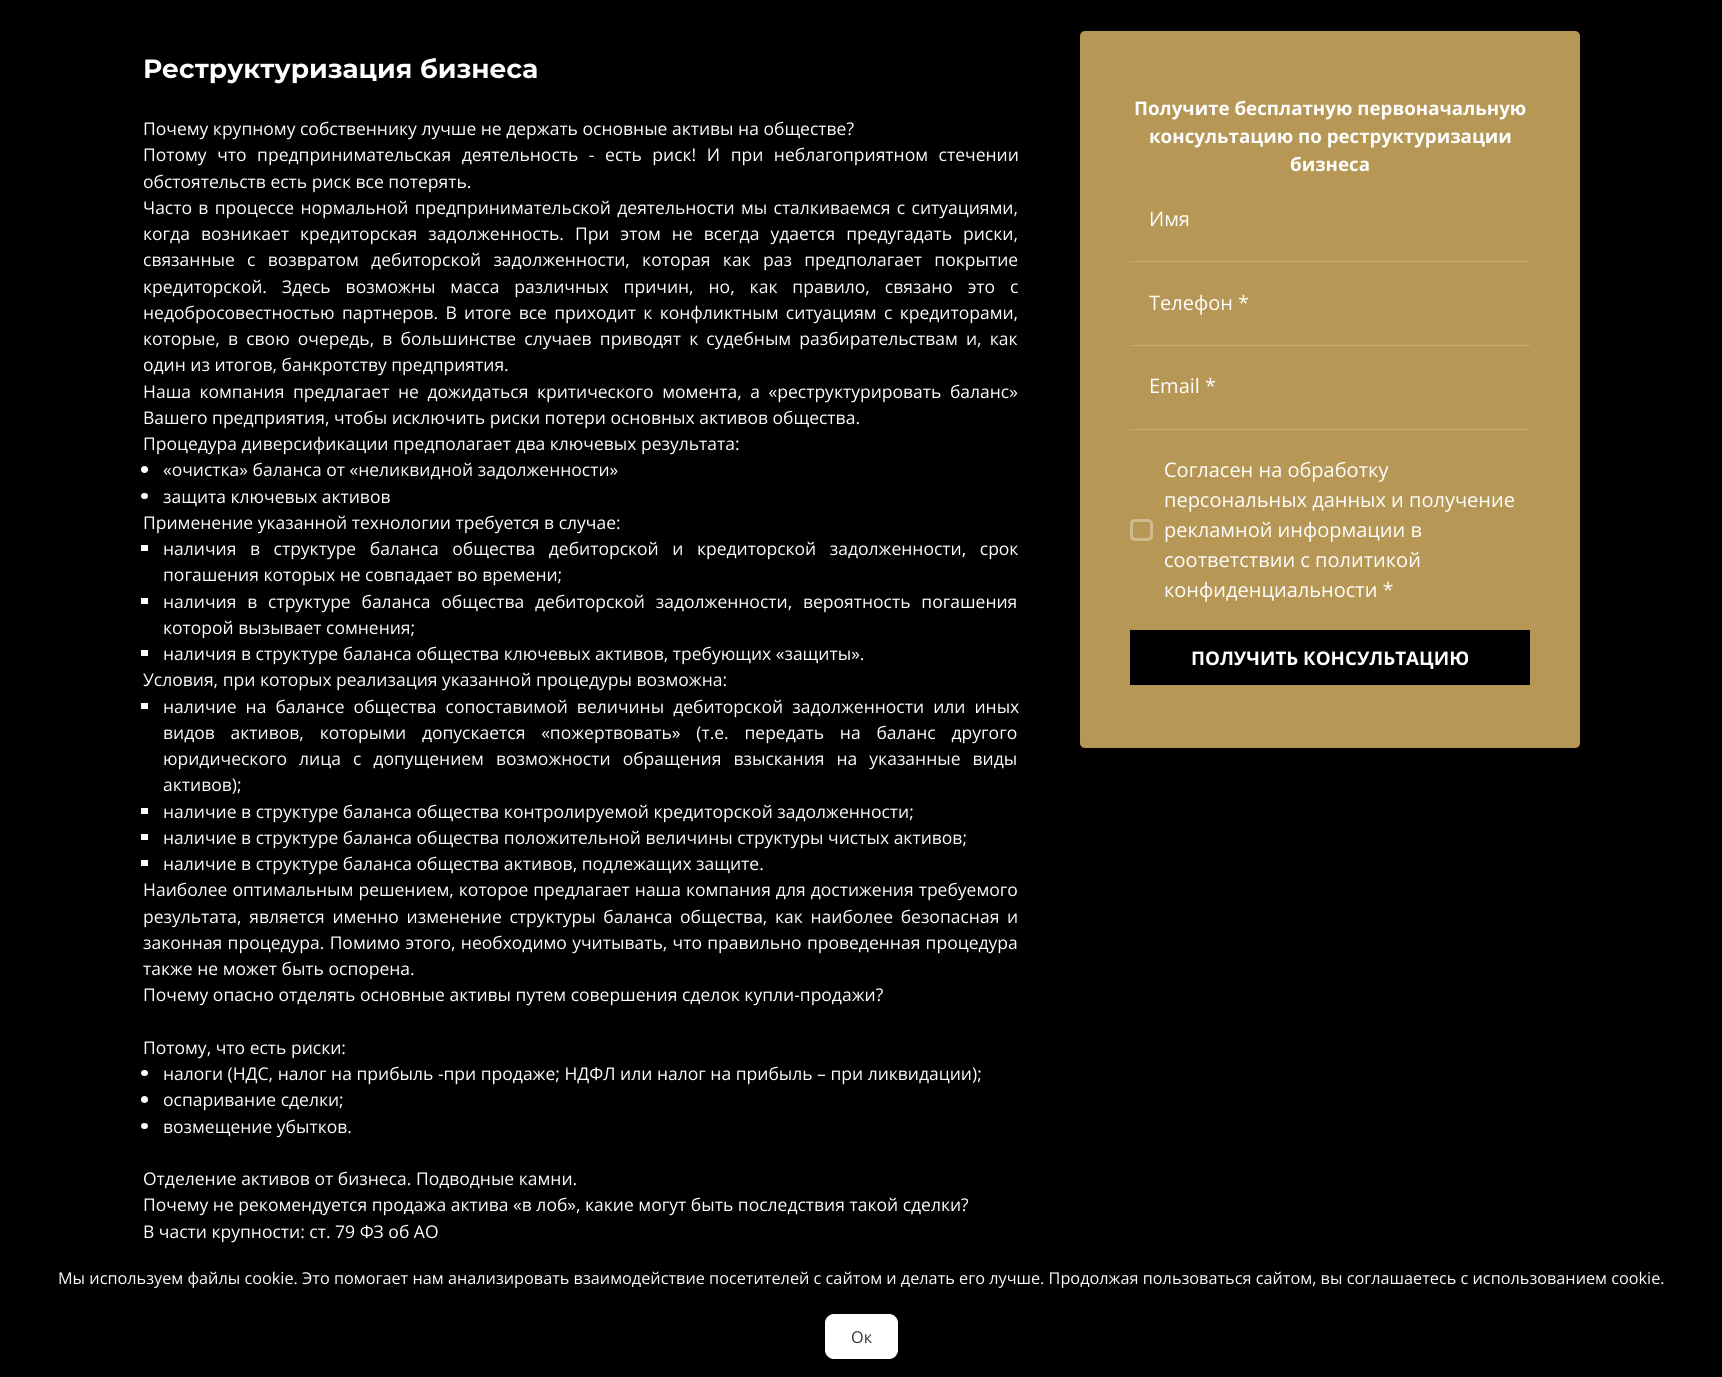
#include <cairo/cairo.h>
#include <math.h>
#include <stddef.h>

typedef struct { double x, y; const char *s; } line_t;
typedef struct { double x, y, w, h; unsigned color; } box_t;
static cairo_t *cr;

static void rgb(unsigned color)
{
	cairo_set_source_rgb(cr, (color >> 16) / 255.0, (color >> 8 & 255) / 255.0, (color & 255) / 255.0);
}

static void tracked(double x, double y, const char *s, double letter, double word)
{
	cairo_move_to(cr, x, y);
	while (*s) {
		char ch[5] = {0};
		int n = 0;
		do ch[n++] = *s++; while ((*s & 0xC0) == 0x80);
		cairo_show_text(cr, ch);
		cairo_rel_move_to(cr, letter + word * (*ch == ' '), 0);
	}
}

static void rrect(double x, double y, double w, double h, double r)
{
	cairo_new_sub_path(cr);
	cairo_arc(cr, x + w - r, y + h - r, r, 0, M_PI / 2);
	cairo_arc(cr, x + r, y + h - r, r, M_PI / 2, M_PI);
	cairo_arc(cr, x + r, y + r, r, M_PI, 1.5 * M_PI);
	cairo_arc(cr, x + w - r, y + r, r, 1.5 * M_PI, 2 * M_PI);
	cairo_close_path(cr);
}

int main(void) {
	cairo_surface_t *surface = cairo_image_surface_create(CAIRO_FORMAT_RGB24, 1722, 1377);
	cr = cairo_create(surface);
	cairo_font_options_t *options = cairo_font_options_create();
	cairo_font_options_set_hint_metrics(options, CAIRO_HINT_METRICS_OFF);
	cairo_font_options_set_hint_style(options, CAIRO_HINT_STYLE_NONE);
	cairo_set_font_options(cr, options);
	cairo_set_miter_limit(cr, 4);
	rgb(0x000000);
	cairo_paint(cr);
	rgb(0xffffff);
	cairo_arc(cr, 144.5, 469.5, 3.5, 0, 2 * M_PI);
	cairo_fill(cr);
	rrect(141, 493, 7, 6, 3);
	cairo_fill(cr);
	{
		static const box_t items[] = {
			{141, 545, 7, 6, 0xffffff},
			{141, 598, 7, 6, 0xffffff},
			{141, 650, 7, 6, 0xffffff},
			{141, 703, 7, 6, 0xffffff},
			{141, 808, 7, 6, 0xffffff},
			{141, 834, 7, 6, 0xffffff},
			{141, 860, 7, 6, 0xffffff},
		};
		for (size_t i = 0; i < sizeof items / sizeof *items; i++) {
			rgb(items[i].color);
			cairo_rectangle(cr, items[i].x, items[i].y, items[i].w, items[i].h);
			cairo_fill(cr);
		}
	}
	rrect(141, 1070, 7, 6, 3);
	cairo_fill(cr);
	cairo_arc(cr, 144.5, 1099.5, 3.5, 0, 2 * M_PI);
	cairo_fill(cr);
	rrect(141, 1123, 7, 6, 3);
	cairo_fill(cr);
	rgb(0xb69755);
	rrect(1080, 31, 500, 717, 5);
	cairo_fill(cr);
	{
		static const box_t items[] = {
			{1130, 261, 400, 1, 0xc5ac77},
			{1130, 345, 400, 1, 0xc5ac77},
			{1130, 429, 400, 1, 0xc5ac77},
		};
		for (size_t i = 0; i < sizeof items / sizeof *items; i++) {
			rgb(items[i].color);
			cairo_rectangle(cr, items[i].x, items[i].y, items[i].w, items[i].h);
			cairo_fill(cr);
		}
	}
	rrect(1131.5, 520.5, 20, 19, 3.5);
	rgb(0xd0bb91);
	cairo_set_line_width(cr, 3);
	cairo_stroke(cr);
	rgb(0x000000);
	cairo_rectangle(cr, 1130, 630, 400, 55);
	cairo_fill(cr);
	rgb(0xffffff);
	rrect(825.5, 1314.5, 72, 44, 8.5);
	cairo_fill_preserve(cr);
	cairo_set_line_width(cr, 1);
	cairo_stroke(cr);
	cairo_select_font_face(cr, "Montserrat", CAIRO_FONT_SLANT_NORMAL, CAIRO_FONT_WEIGHT_BOLD);
	cairo_set_font_size(cr, 26.4);
	cairo_move_to(cr, 143, 78);
	cairo_show_text(cr, "Реструктуризация бизнеса");
	cairo_select_font_face(cr, "Open Sans", CAIRO_FONT_SLANT_NORMAL, CAIRO_FONT_WEIGHT_NORMAL);
	cairo_set_font_size(cr, 17.5);
	cairo_move_to(cr, 143, 135);
	cairo_show_text(cr, "Почему крупному собственнику лучше не держать основные активы на обществе?");
	tracked(143, 161, "Потому что предпринимательская деятельность - есть риск! И при неблагоприятном стечении", 0, 6);
	cairo_move_to(cr, 143, 188);
	cairo_show_text(cr, "обстоятельств есть риск все потерять.");
	tracked(143, 214, "Часто в процессе нормальной предпринимательской деятельности мы сталкиваемся с ситуациями,", 0, 1.75);
	tracked(143, 240, "когда возникает кредиторская задолженность. При этом не всегда удается предугадать риски,", 0, 6.5);
	tracked(143, 266, "связанные с возвратом дебиторской задолженности, которая как раз предполагает покрытие", 0, 7.75);
	tracked(143, 293, "кредиторской. Здесь возможны масса различных причин, но, как правило, связано это с", 0, 10.4);
	tracked(143, 319, "недобросовестностью партнеров. В итоге все приходит к конфликтным ситуациям с кредиторами,", 0, 2.75);
	tracked(143, 345, "которые, в свою очередь, в большинстве случаев приводят к судебным разбирательствам и, как", 0, 3.6);
	cairo_move_to(cr, 143, 371);
	cairo_show_text(cr, "один из итогов, банкротству предприятия.");
	tracked(143, 398, "Наша компания предлагает не дожидаться критического момента, а «реструктурировать баланс»", 0, 4);
	{
		static const line_t items[] = {
			{143, 424, "Вашего предприятия, чтобы исключить риски потери основных активов общества."},
			{143, 450, "Процедура диверсификации предполагает два ключевых результата:"},
			{163, 476, "«очистка» баланса от «неликвидной задолженности»"},
			{163, 503, "защита ключевых активов"},
			{143, 529, "Применение указанной технологии требуется в случае:"},
		};
		for (size_t i = 0; i < sizeof items / sizeof *items; i++) {
			cairo_move_to(cr, items[i].x, items[i].y);
			cairo_show_text(cr, items[i].s);
		}
	}
	tracked(163, 555, "наличия в структуре баланса общества дебиторской и кредиторской задолженности, срок", 0, 9);
	cairo_move_to(cr, 163, 581);
	cairo_show_text(cr, "погашения которых не совпадает во времени;");
	tracked(163, 608, "наличия в структуре баланса общества дебиторской задолженности, вероятность погашения", 0, 6.25);
	{
		static const line_t items[] = {
			{163, 634, "которой вызывает сомнения;"},
			{163, 660, "наличия в структуре баланса общества ключевых активов, требующих «защиты»."},
			{143, 686, "Условия, при которых реализация указанной процедуры возможна:"},
		};
		for (size_t i = 0; i < sizeof items / sizeof *items; i++) {
			cairo_move_to(cr, items[i].x, items[i].y);
			cairo_show_text(cr, items[i].s);
		}
	}
	tracked(163, 713, "наличие на балансе общества сопоставимой величины дебиторской задолженности или иных", 0, 4.5);
	tracked(163, 739, "видов активов, которыми допускается «пожертвовать» (т.е. передать на баланс другого", 0, 11.25);
	tracked(163, 765, "юридического лица с допущением возможности обращения взыскания на указанные виды", 0, 7.5);
	{
		static const line_t items[] = {
			{163, 791, "активов);"},
			{163, 818, "наличие в структуре баланса общества контролируемой кредиторской задолженности;"},
			{163, 844, "наличие в структуре баланса общества положительной величины структуры чистых активов;"},
			{163, 870, "наличие в структуре баланса общества активов, подлежащих защите."},
		};
		for (size_t i = 0; i < sizeof items / sizeof *items; i++) {
			cairo_move_to(cr, items[i].x, items[i].y);
			cairo_show_text(cr, items[i].s);
		}
	}
	tracked(143, 896, "Наиболее оптимальным решением, которое предлагает наша компания для достижения требуемого", 0, 0.5);
	tracked(143, 923, "результата, является именно изменение структуры баланса общества, как наиболее безопасная и", 0, 3.1);
	tracked(143, 949, "законная процедура. Помимо этого, необходимо учитывать, что правильно проведенная процедура", 0, 0.75);
	{
		static const line_t items[] = {
			{143, 975, "также не может быть оспорена."},
			{143, 1001, "Почему опасно отделять основные активы путем совершения сделок купли-продажи?"},
			{143, 1054, "Потому, что есть риски:"},
			{163, 1080, "налоги (НДС, налог на прибыль -при продаже; НДФЛ или налог на прибыль – при ликвидации);"},
			{163, 1106, "оспаривание сделки;"},
			{163, 1133, "возмещение убытков."},
			{143, 1185, "Отделение активов от бизнеса. Подводные камни."},
			{143, 1211, "Почему не рекомендуется продажа актива «в лоб», какие могут быть последствия такой сделки?"},
			{143, 1238, "В части крупности: ст. 79 ФЗ об АО"},
		};
		for (size_t i = 0; i < sizeof items / sizeof *items; i++) {
			cairo_move_to(cr, items[i].x, items[i].y);
			cairo_show_text(cr, items[i].s);
		}
	}
	cairo_select_font_face(cr, "Open Sans", CAIRO_FONT_SLANT_NORMAL, CAIRO_FONT_WEIGHT_BOLD);
	cairo_set_font_size(cr, 18.75);
	{
		static const line_t items[] = {
			{1134, 115, "Получите бесплатную первоначальную"},
			{1149, 143, "консультацию по реструктуризации"},
			{1290, 171, "бизнеса"},
		};
		for (size_t i = 0; i < sizeof items / sizeof *items; i++) {
			cairo_move_to(cr, items[i].x, items[i].y);
			cairo_show_text(cr, items[i].s);
		}
	}
	cairo_select_font_face(cr, "Open Sans", CAIRO_FONT_SLANT_NORMAL, CAIRO_FONT_WEIGHT_NORMAL);
	cairo_set_font_size(cr, 20);
	{
		static const line_t items[] = {
			{1149, 226, "Имя"},
			{1149, 310, "Телефон *"},
			{1149, 393, "Email *"},
			{1164, 477, "Согласен на обработку"},
			{1164, 507, "персональных данных и получение"},
			{1164, 537, "рекламной информации в"},
			{1164, 567, "соответствии с политикой"},
			{1164, 597, "конфиденциальности *"},
		};
		for (size_t i = 0; i < sizeof items / sizeof *items; i++) {
			cairo_move_to(cr, items[i].x, items[i].y);
			cairo_show_text(cr, items[i].s);
		}
	}
	cairo_select_font_face(cr, "Open Sans", CAIRO_FONT_SLANT_NORMAL, CAIRO_FONT_WEIGHT_BOLD);
	cairo_set_font_size(cr, 18.75);
	cairo_move_to(cr, 1191, 665);
	cairo_show_text(cr, "ПОЛУЧИТЬ КОНСУЛЬТАЦИЮ");
	cairo_select_font_face(cr, "Open Sans", CAIRO_FONT_SLANT_NORMAL, CAIRO_FONT_WEIGHT_NORMAL);
	cairo_set_font_size(cr, 16.25);
	cairo_move_to(cr, 58, 1284);
	cairo_show_text(cr, "Мы используем файлы cookie. Это помогает нам анализировать взаимодействие посетителей с сайтом и делать его лучше. Продолжая пользоваться сайтом, вы соглашаетесь с использованием cookie.");
	rgb(0x30343b);
	cairo_move_to(cr, 851, 1343);
	cairo_show_text(cr, "Ок");
	cairo_surface_write_to_png(surface, "page.png");
	cairo_font_options_destroy(options);
	cairo_destroy(cr);
	cairo_surface_destroy(surface);
	return 0;
}
